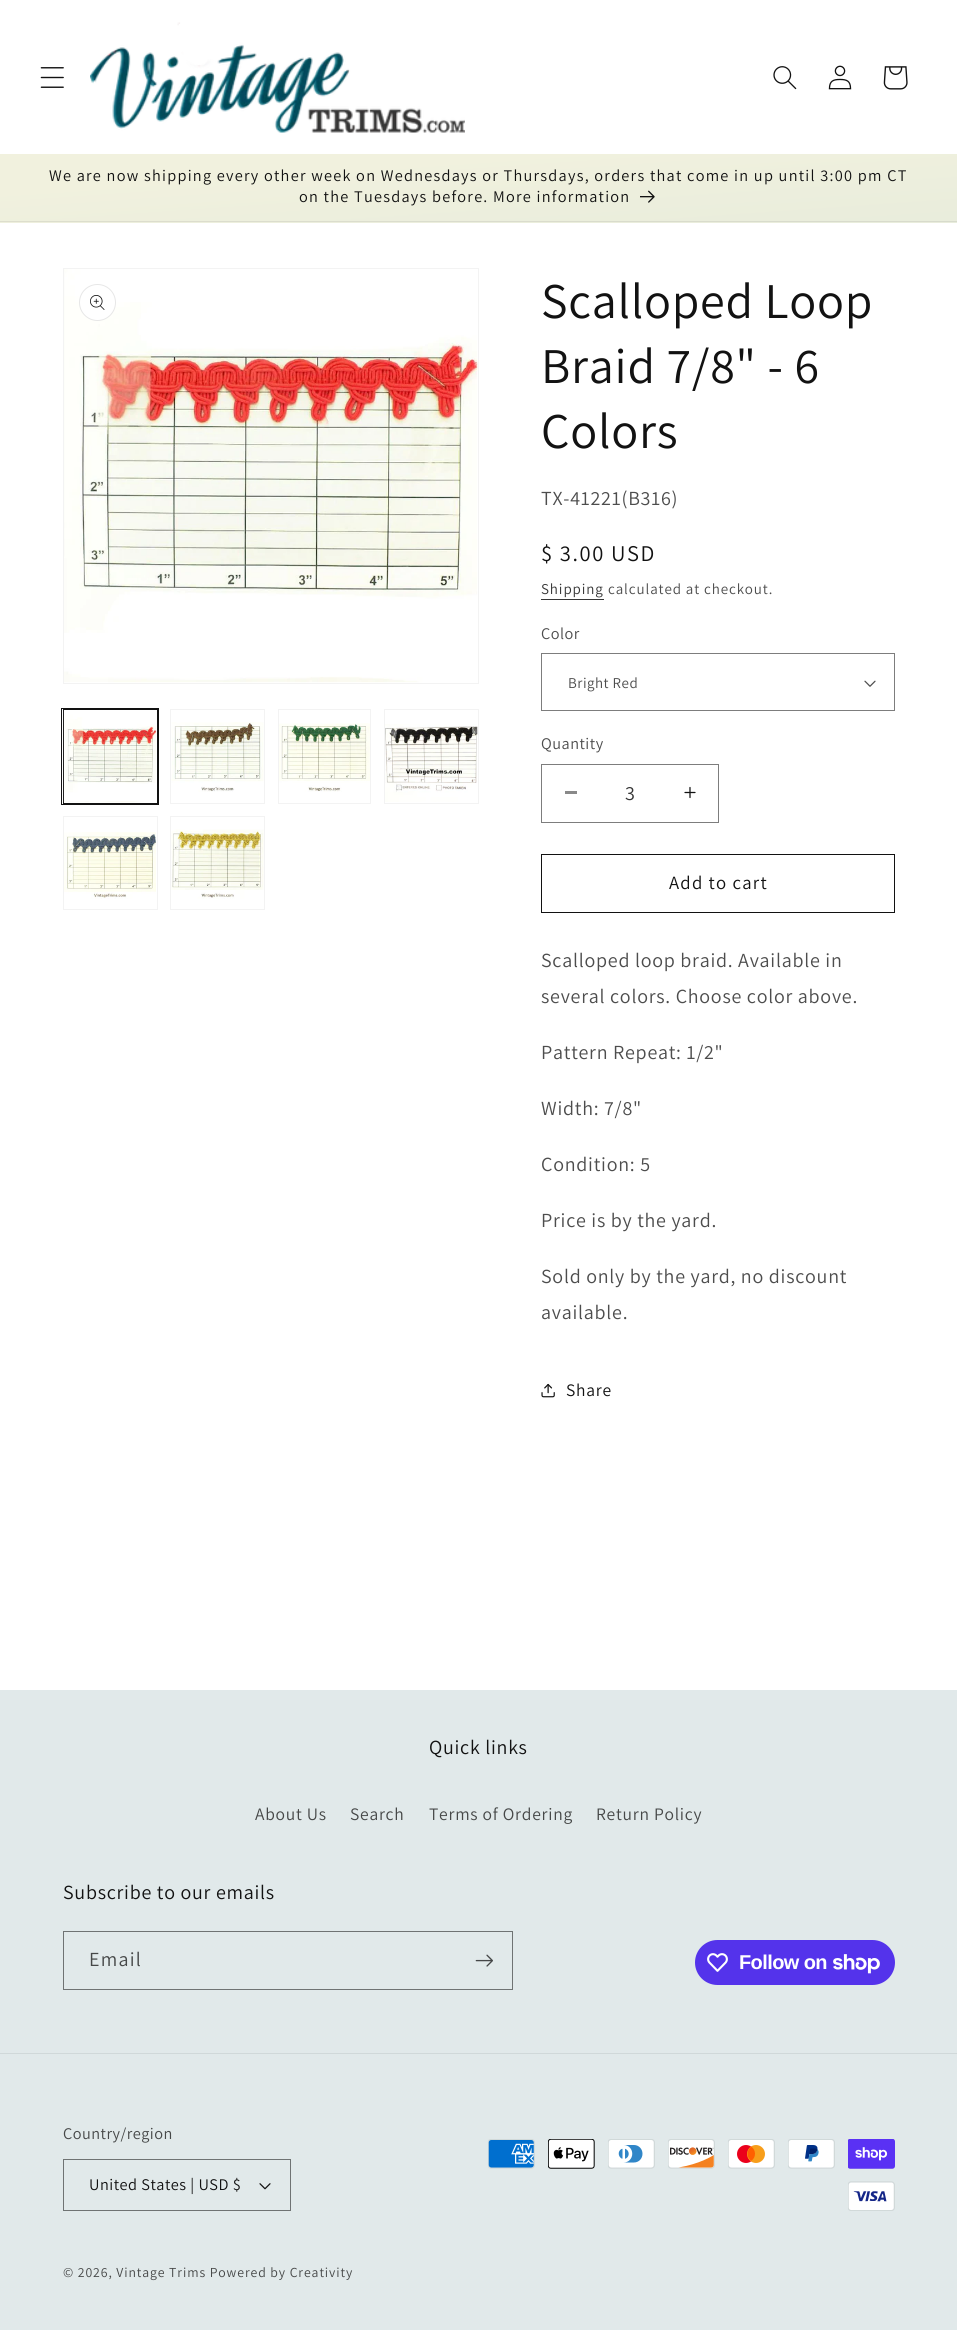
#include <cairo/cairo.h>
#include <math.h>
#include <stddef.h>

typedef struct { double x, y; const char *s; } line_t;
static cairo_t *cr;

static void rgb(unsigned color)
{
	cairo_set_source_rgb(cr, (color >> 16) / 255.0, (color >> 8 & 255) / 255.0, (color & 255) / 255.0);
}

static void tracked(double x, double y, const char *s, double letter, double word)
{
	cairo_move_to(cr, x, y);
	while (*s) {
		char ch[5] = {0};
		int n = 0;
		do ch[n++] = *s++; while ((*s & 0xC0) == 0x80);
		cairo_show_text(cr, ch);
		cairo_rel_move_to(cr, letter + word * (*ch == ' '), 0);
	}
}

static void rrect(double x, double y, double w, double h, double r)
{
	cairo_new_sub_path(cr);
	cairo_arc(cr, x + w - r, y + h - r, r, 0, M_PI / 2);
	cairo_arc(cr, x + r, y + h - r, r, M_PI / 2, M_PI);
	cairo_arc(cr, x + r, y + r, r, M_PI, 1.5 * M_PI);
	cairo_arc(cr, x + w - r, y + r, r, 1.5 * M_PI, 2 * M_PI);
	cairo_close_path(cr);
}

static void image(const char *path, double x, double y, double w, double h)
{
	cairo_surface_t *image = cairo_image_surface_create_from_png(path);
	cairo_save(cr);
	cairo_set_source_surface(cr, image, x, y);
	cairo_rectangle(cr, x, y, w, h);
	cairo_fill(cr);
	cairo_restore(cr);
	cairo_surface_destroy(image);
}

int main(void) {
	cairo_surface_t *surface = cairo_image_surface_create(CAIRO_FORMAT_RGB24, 957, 2330);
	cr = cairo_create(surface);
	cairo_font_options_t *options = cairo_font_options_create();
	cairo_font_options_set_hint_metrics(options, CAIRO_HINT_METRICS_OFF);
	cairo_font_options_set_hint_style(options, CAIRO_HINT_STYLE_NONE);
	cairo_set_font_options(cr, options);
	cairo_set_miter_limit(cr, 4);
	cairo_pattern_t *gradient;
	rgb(0xffffff);
	cairo_paint(cr);
	image("img/1.png", 40, 67, 24, 21);
	image("img/2.png", 90, 22, 375, 111);
	image("img/3.png", 773, 66, 24, 24);
	image("img/4.png", 828, 65, 24, 25);
	image("img/5.png", 883, 66, 25, 24);
	gradient = cairo_pattern_create_linear(562, 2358, 395, -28);
	cairo_pattern_add_color_stop_rgba(gradient, 0.31, 0.447, 0.675, 0.733, 1);
	cairo_pattern_add_color_stop_rgba(gradient, 0.92, 0.945, 0.945, 0.871, 1);
	cairo_set_source(cr, gradient);
	cairo_pattern_destroy(gradient);
	cairo_rectangle(cr, 0, 154, 957, 69);
	cairo_fill(cr);
	gradient = cairo_pattern_create_linear(562, 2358, 395, -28);
	cairo_pattern_add_color_stop_rgba(gradient, 0.31, 0.416, 0.627, 0.678, 1);
	cairo_pattern_add_color_stop_rgba(gradient, 0.92, 0.875, 0.875, 0.808, 1);
	cairo_set_source(cr, gradient);
	cairo_pattern_destroy(gradient);
	cairo_rectangle(cr, 0, 221, 957, 1);
	cairo_fill(cr);
	image("img/6.png", 640, 190, 15, 13);
	cairo_rectangle(cr, 63.5, 268.5, 415, 415);
	rgb(0xf3f3f3);
	cairo_set_line_width(cr, 1);
	cairo_stroke(cr);
	image("img/7.png", 64, 269, 414, 414);
	rgb(0xffffff);
	cairo_arc(cr, 97.5, 302.5, 18, 0, 2 * M_PI);
	cairo_fill_preserve(cr);
	rgb(0xe7e7e7);
	cairo_stroke(cr);
	image("img/8.png", 90, 295, 15, 15);
	cairo_rectangle(cr, 61.5, 708.5, 97, 96);
	rgb(0x121212);
	cairo_stroke(cr);
	cairo_rectangle(cr, 63.5, 709.5, 94, 94);
	cairo_stroke(cr);
	image("img/9.png", 63, 710, 94, 93);
	cairo_rectangle(cr, 170.5, 709.5, 94, 94);
	rgb(0xf3f3f3);
	cairo_stroke(cr);
	image("img/10.png", 171, 722, 93, 70);
	cairo_rectangle(cr, 278.5, 709.5, 92, 94);
	cairo_stroke(cr);
	image("img/11.png", 279, 723, 91, 69);
	cairo_rectangle(cr, 384.5, 709.5, 94, 94);
	cairo_stroke(cr);
	image("img/12.png", 385, 724, 93, 78);
	cairo_rectangle(cr, 63.5, 816.5, 94, 93);
	cairo_stroke(cr);
	image("img/13.png", 64, 832, 92, 67);
	cairo_rectangle(cr, 170.5, 816.5, 94, 93);
	cairo_stroke(cr);
	image("img/14.png", 171, 829, 93, 70);
	rgb(0x363636);
	cairo_rectangle(cr, 541, 599, 63, 1);
	cairo_fill(cr);
	image("img/15.png", 864, 680, 12, 7);
	cairo_rectangle(cr, 541.5, 653.5, 353, 57);
	rgb(0x7d7d7d);
	cairo_stroke(cr);
	rgb(0x898989);
	cairo_rectangle(cr, 565, 791, 12, 3);
	cairo_fill(cr);
	image("img/16.png", 684, 786, 12, 13);
	cairo_rectangle(cr, 541.5, 764.5, 177, 58);
	rgb(0x7d7d7d);
	cairo_stroke(cr);
	cairo_rectangle(cr, 541.5, 854.5, 353, 58);
	rgb(0x121212);
	cairo_stroke(cr);
	image("img/17.png", 541, 1383, 14, 15);
	rgb(0xe1e9ea);
	cairo_rectangle(cr, 0, 1690, 957, 640);
	cairo_fill(cr);
	cairo_rectangle(cr, 63.5, 1931.5, 449, 58);
	rgb(0x6f7373);
	cairo_stroke(cr);
	image("img/18.png", 475, 1954, 18, 13);
	rgb(0x5433eb);
	rrect(695, 1940, 200, 45, 22.5);
	cairo_fill(cr);
	image("img/19.png", 707, 1953, 21, 19);
	image("img/20.png", 833, 1954, 47, 20);
	rgb(0xd0d8d9);
	cairo_rectangle(cr, 0, 2053, 957, 1);
	cairo_fill(cr);
	image("img/21.png", 259, 2183, 12, 7);
	cairo_rectangle(cr, 63.5, 2159.5, 227, 51);
	rgb(0x6f7373);
	cairo_stroke(cr);
	image("img/22.png", 488, 2139, 47, 30);
	image("img/23.png", 548, 2139, 47, 30);
	image("img/24.png", 608, 2139, 47, 30);
	image("img/25.png", 668, 2139, 47, 30);
	image("img/26.png", 728, 2139, 47, 30);
	image("img/27.png", 788, 2139, 47, 30);
	image("img/28.png", 848, 2139, 47, 30);
	image("img/29.png", 848, 2181, 47, 30);
	cairo_select_font_face(cr, "Assistant", CAIRO_FONT_SLANT_NORMAL, CAIRO_FONT_WEIGHT_NORMAL);
	cairo_set_font_size(cr, 16.25);
	rgb(0x121212);
	tracked(49, 181, "We are now shipping every other week on Wednesdays or Thursdays, orders that come in up until 3:00 pm CT", 1.25, 0);
	tracked(299, 202, "on the Tuesdays before. More information", 1.25, 0);
	cairo_set_font_size(cr, 50);
	{
		static const line_t items[] = {
			{541, 318, "Scalloped Loop"},
			{541, 383, "Braid 7/8\" - 6"},
			{541, 448, "Colors"},
		};
		for (size_t i = 0; i < sizeof items / sizeof *items; i++) {
			tracked(items[i].x, items[i].y, items[i].s, 0.75, 0);
		}
	}
	cairo_set_font_size(cr, 20);
	rgb(0x4d4d4d);
	tracked(541, 505, "TX-41221(B316)", 0.75, 0);
	cairo_set_font_size(cr, 22.5);
	rgb(0x121212);
	tracked(541, 561, "$ 3.00 USD", 1.6, 0);
	cairo_set_font_size(cr, 15);
	rgb(0x363636);
	tracked(541, 594, "Shipping", 0.9, 0);
	rgb(0x4d4d4d);
	tracked(608, 594, "calculated at checkout.", 0.9, 0);
	cairo_set_font_size(cr, 16.25);
	tracked(541, 639, "Color", 0.5, 0);
	cairo_set_font_size(cr, 15);
	tracked(568, 688, "Bright Red", 0.5, 0);
	cairo_set_font_size(cr, 16.25);
	tracked(541, 749, "Quantity", 0.5, 0);
	cairo_set_font_size(cr, 20);
	rgb(0x363636);
	cairo_move_to(cr, 625, 800);
	cairo_show_text(cr, "3");
	cairo_set_font_size(cr, 18.75);
	rgb(0x121212);
	tracked(669, 889, "Add to cart", 1.25, 0);
	cairo_set_font_size(cr, 20);
	rgb(0x4d4d4d);
	{
		static const line_t items[] = {
			{541, 967, "Scalloped loop braid. Available in"},
			{541, 1003, "several colors. Choose color above."},
			{541, 1059, "Pattern Repeat: 1/2\""},
			{541, 1115, "Width: 7/8\""},
			{541, 1171, "Condition: 5"},
			{541, 1227, "Price is by the yard."},
			{541, 1283, "Sold only by the yard, no discount"},
			{541, 1319, "available."},
		};
		for (size_t i = 0; i < sizeof items / sizeof *items; i++) {
			tracked(items[i].x, items[i].y, items[i].s, 0.75, 0);
		}
	}
	cairo_set_font_size(cr, 17.5);
	rgb(0x121212);
	tracked(566, 1396, "Share", 0.75, 0);
	cairo_set_font_size(cr, 20);
	tracked(429, 1754, "Quick links", 0.75, 0);
	cairo_set_font_size(cr, 17.5);
	rgb(0x464848);
	{
		static const line_t items[] = {
			{255, 1820, "About Us"},
			{350, 1820, "Search"},
			{429, 1820, "Terms of Ordering"},
			{596, 1820, "Return Policy"},
		};
		for (size_t i = 0; i < sizeof items / sizeof *items; i++) {
			tracked(items[i].x, items[i].y, items[i].s, 0.75, 0);
		}
	}
	cairo_set_font_size(cr, 20);
	rgb(0x121212);
	tracked(63, 1899, "Subscribe to our emails", 0.75, 0);
	rgb(0x464848);
	tracked(89, 1966, "Email", 1.25, 0);
	cairo_select_font_face(cr, "Liberation Sans", CAIRO_FONT_SLANT_NORMAL, CAIRO_FONT_WEIGHT_BOLD);
	rgb(0xffffff);
	tracked(739, 1969, "Follow on", -0.6, 0);
	cairo_select_font_face(cr, "Assistant", CAIRO_FONT_SLANT_NORMAL, CAIRO_FONT_WEIGHT_NORMAL);
	cairo_set_font_size(cr, 16.25);
	rgb(0x464848);
	tracked(63, 2139, "Country/region", 0.5, 0);
	rgb(0x121212);
	tracked(89, 2190, "United States | USD $", 0.5, 0);
	cairo_set_font_size(cr, 13.75);
	rgb(0x464848);
	tracked(63, 2277, "© 2026, Vintage Trims Powered by Creativity", 0.9, 0);
	cairo_surface_write_to_png(surface, "page.png");
	cairo_font_options_destroy(options);
	cairo_destroy(cr);
	cairo_surface_destroy(surface);
	return 0;
}
